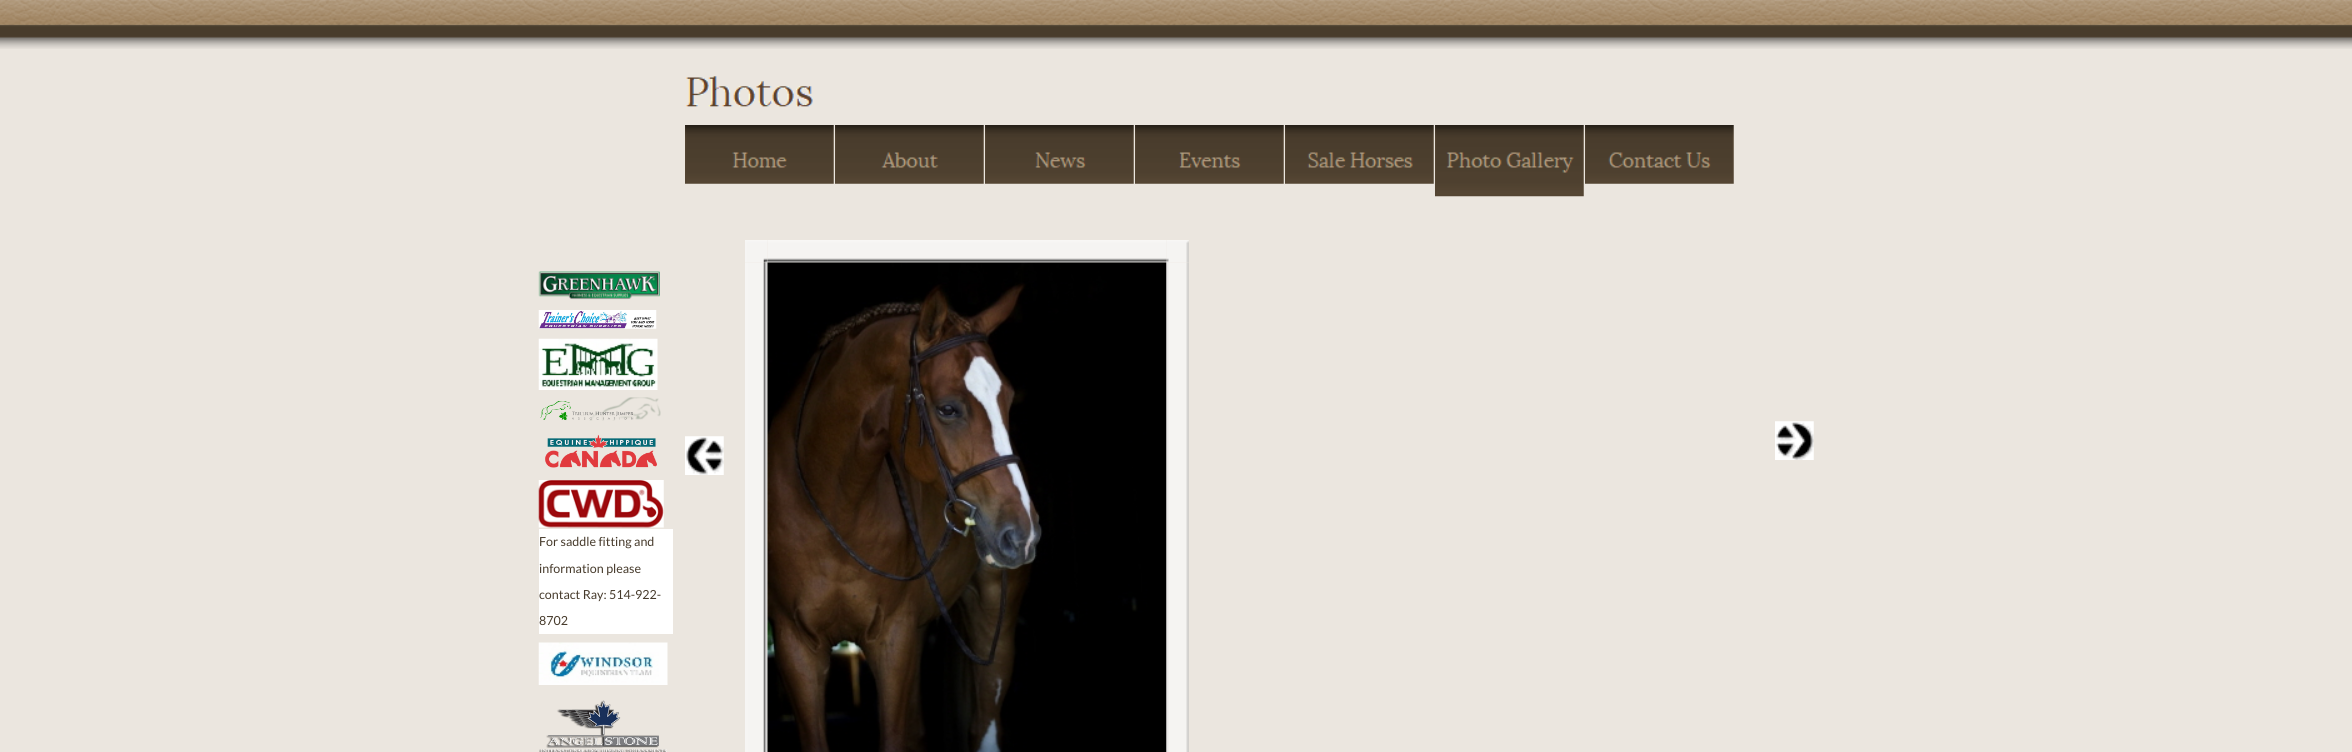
#include <cairo/cairo.h>
#include <math.h>
#include <stddef.h>

typedef struct { double x, y; const char *s; } line_t;
static cairo_t *cr;

static void rgb(unsigned color)
{
	cairo_set_source_rgb(cr, (color >> 16) / 255.0, (color >> 8 & 255) / 255.0, (color & 255) / 255.0);
}

static void image(const char *path, double x, double y, double w, double h)
{
	cairo_surface_t *image = cairo_image_surface_create_from_png(path);
	cairo_save(cr);
	cairo_set_source_surface(cr, image, x, y);
	cairo_rectangle(cr, x, y, w, h);
	cairo_fill(cr);
	cairo_restore(cr);
	cairo_surface_destroy(image);
}

int main(void) {
	cairo_surface_t *surface = cairo_image_surface_create(CAIRO_FORMAT_RGB24, 2352, 752);
	cr = cairo_create(surface);
	cairo_font_options_t *options = cairo_font_options_create();
	cairo_font_options_set_hint_metrics(options, CAIRO_HINT_METRICS_OFF);
	cairo_font_options_set_hint_style(options, CAIRO_HINT_STYLE_NONE);
	cairo_set_font_options(cr, options);
	cairo_set_miter_limit(cr, 4);
	rgb(0xebe6df);
	cairo_paint(cr);
	image("img/1.png", 0, 0, 2352, 49);
	image("img/2.png", 538, 271, 122, 29);
	image("img/3.png", 538, 310, 119, 19);
	image("img/4.png", 538, 338, 120, 52);
	image("img/5.png", 540, 397, 121, 24);
	image("img/6.png", 545, 434, 112, 34);
	image("img/7.png", 538, 480, 126, 48);
	rgb(0xffffff);
	cairo_rectangle(cr, 539, 529, 134, 105);
	cairo_fill(cr);
	image("img/8.png", 538, 642, 130, 43);
	image("img/9.png", 539, 700, 128, 52);
	image("img/10.png", 686, 76, 127, 31);
	image("img/11.png", 685, 125, 149, 59);
	image("img/12.png", 835, 125, 149, 59);
	image("img/13.png", 985, 125, 149, 59);
	image("img/14.png", 1135, 125, 149, 59);
	image("img/15.png", 1285, 125, 149, 59);
	image("img/16.png", 1435, 125, 149, 72);
	image("img/17.png", 1585, 125, 149, 59);
	image("img/18.png", 685, 436, 39, 39);
	image("img/19.png", 745, 240, 23, 23);
	image("img/20.png", 767, 240, 400, 23);
	image("img/21.png", 1166, 240, 23, 23);
	image("img/22.png", 745, 262, 23, 490);
	image("img/24.png", 1166, 262, 23, 490);
	image("img/23.png", 767, 262, 400, 490);
	image("img/25.png", 1775, 421, 39, 39);
	cairo_select_font_face(cr, "Lato", CAIRO_FONT_SLANT_NORMAL, CAIRO_FONT_WEIGHT_NORMAL);
	cairo_set_font_size(cr, 12.5);
	rgb(0x463a2b);
	{
		static const line_t items[] = {
			{539, 546, "For saddle fitting and"},
			{539, 573, "information please"},
			{539, 599, "contact Ray: 514-922-"},
			{539, 625, "8702"},
		};
		for (size_t i = 0; i < sizeof items / sizeof *items; i++) {
			cairo_move_to(cr, items[i].x, items[i].y);
			cairo_show_text(cr, items[i].s);
		}
	}
	cairo_surface_write_to_png(surface, "page.png");
	cairo_font_options_destroy(options);
	cairo_destroy(cr);
	cairo_surface_destroy(surface);
	return 0;
}
